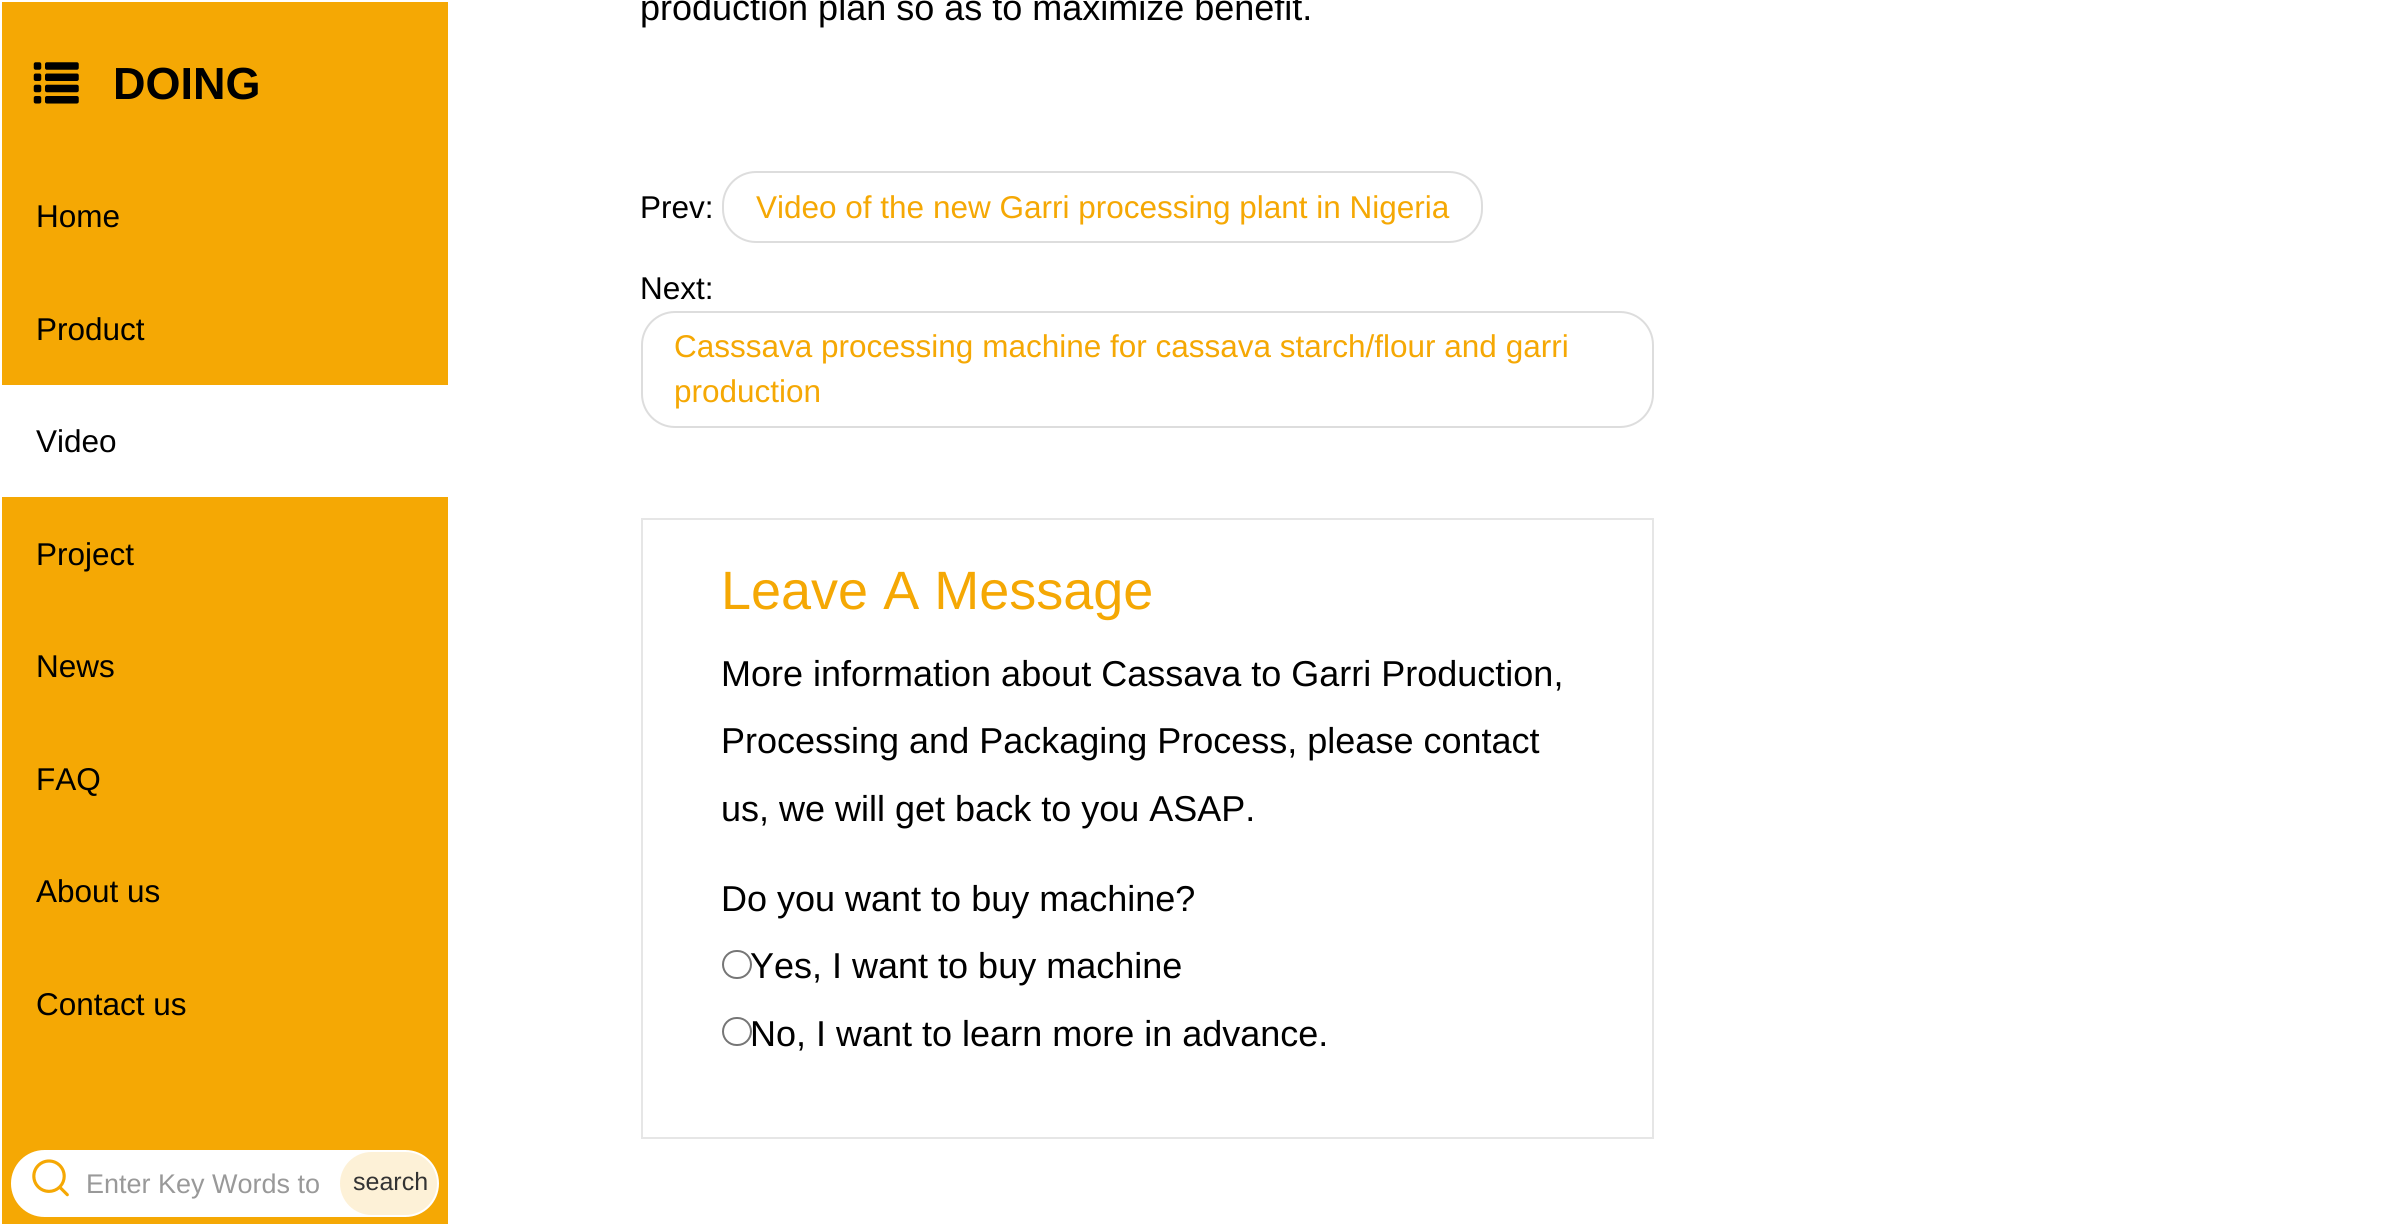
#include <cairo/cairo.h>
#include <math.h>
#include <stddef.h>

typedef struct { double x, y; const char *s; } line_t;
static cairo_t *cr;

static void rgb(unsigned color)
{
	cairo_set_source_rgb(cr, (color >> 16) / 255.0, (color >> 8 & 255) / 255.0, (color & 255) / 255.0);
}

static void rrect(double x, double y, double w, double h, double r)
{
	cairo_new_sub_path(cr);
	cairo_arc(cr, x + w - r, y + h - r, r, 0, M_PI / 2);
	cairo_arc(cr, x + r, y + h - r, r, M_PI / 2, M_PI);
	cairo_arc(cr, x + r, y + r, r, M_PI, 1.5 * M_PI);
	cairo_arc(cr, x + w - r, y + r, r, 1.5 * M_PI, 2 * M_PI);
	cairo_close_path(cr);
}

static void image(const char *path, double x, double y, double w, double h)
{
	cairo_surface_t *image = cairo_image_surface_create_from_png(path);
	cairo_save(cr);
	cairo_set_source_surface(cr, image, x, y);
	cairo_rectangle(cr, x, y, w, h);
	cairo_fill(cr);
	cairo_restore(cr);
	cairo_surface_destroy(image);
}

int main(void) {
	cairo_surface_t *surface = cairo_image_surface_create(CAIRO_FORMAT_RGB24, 2382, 1226);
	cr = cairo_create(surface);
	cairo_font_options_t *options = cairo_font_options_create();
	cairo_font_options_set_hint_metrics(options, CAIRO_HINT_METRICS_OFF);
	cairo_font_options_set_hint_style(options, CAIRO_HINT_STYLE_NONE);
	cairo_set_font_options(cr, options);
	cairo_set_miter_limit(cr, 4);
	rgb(0xffffff);
	cairo_paint(cr);
	rgb(0xf5a804);
	cairo_rectangle(cr, 2, 2, 446, 1222);
	cairo_fill(cr);
	image("img/1.png", 33, 62, 46, 42);
	rrect(723, 172, 759, 70, 33);
	rgb(0xdddddd);
	cairo_stroke(cr);
	rrect(642, 312, 1011, 115, 33);
	cairo_stroke(cr);
	cairo_rectangle(cr, 642, 519, 1011, 619);
	rgb(0xe6e6e6);
	cairo_stroke(cr);
	rrect(723, 951, 28, 27, 13.5);
	rgb(0x767676);
	cairo_stroke(cr);
	rrect(723, 1018, 28, 27, 13.5);
	cairo_stroke(cr);
	rgb(0xffffff);
	cairo_rectangle(cr, 2, 385, 446, 112);
	cairo_fill(cr);
	cairo_new_path(cr);
	cairo_move_to(cr, 44.5, 1151);
	cairo_line_to(cr, 78, 1151);
	cairo_line_to(cr, 78, 1216);
	cairo_line_to(cr, 44.5, 1216);
	cairo_curve_to(cr, 26.5, 1216, 12, 1201.5, 12, 1183.5);
	cairo_curve_to(cr, 12, 1165.5, 26.5, 1151, 44.5, 1151);
	cairo_close_path(cr);
	cairo_fill_preserve(cr);
	cairo_stroke(cr);
	image("img/2.png", 32, 1159, 37, 38);
	cairo_rectangle(cr, 79, 1150, 259, 67);
	cairo_fill(cr);
	cairo_new_path(cr);
	cairo_move_to(cr, 339, 1151);
	cairo_line_to(cr, 405.5, 1151);
	cairo_curve_to(cr, 423.5, 1151, 438, 1165.5, 438, 1183.5);
	cairo_curve_to(cr, 438, 1201.5, 423.5, 1216, 405.5, 1216);
	cairo_line_to(cr, 339, 1216);
	cairo_close_path(cr);
	cairo_fill_preserve(cr);
	cairo_stroke(cr);
	rgb(0xfdf1d7);
	rrect(340, 1152, 97, 63, 31.5);
	cairo_fill(cr);
	cairo_select_font_face(cr, "Liberation Sans", CAIRO_FONT_SLANT_NORMAL, CAIRO_FONT_WEIGHT_BOLD);
	cairo_set_font_size(cr, 45);
	rgb(0x000000);
	cairo_move_to(cr, 113, 99);
	cairo_show_text(cr, "DOING");
	cairo_select_font_face(cr, "Liberation Sans", CAIRO_FONT_SLANT_NORMAL, CAIRO_FONT_WEIGHT_NORMAL);
	cairo_set_font_size(cr, 36);
	cairo_move_to(cr, 640, 20);
	cairo_show_text(cr, "production plan so as to maximize benefit.");
	cairo_set_font_size(cr, 31.5);
	cairo_move_to(cr, 640, 218);
	cairo_show_text(cr, "Prev:");
	rgb(0xf5a804);
	cairo_move_to(cr, 756, 218);
	cairo_show_text(cr, "Video of the new Garri processing plant in Nigeria");
	rgb(0x000000);
	cairo_move_to(cr, 640, 299);
	cairo_show_text(cr, "Next:");
	rgb(0xf5a804);
	cairo_move_to(cr, 674, 357);
	cairo_show_text(cr, "Casssava processing machine for cassava starch/flour and garri");
	cairo_move_to(cr, 674, 402);
	cairo_show_text(cr, "production");
	cairo_set_font_size(cr, 54);
	cairo_move_to(cr, 721, 609);
	cairo_show_text(cr, "Leave A Message");
	cairo_set_font_size(cr, 36);
	rgb(0x000000);
	{
		static const line_t items[] = {
			{721, 686, "More information about Cassava to Garri Production,"},
			{721, 753, "Processing and Packaging Process, please contact"},
			{721, 821, "us, we will get back to you ASAP."},
			{721, 911, "Do you want to buy machine?"},
			{750, 978, "Yes, I want to buy machine"},
			{750, 1046, "No, I want to learn more in advance."},
		};
		for (size_t i = 0; i < sizeof items / sizeof *items; i++) {
			cairo_move_to(cr, items[i].x, items[i].y);
			cairo_show_text(cr, items[i].s);
		}
	}
	cairo_set_font_size(cr, 31.5);
	{
		static const line_t items[] = {
			{36, 227, "Home"},
			{36, 340, "Product"},
			{36, 452, "Video"},
			{36, 565, "Project"},
			{36, 677, "News"},
			{36, 790, "FAQ"},
			{36, 902, "About us"},
			{36, 1015, "Contact us"},
		};
		for (size_t i = 0; i < sizeof items / sizeof *items; i++) {
			cairo_move_to(cr, items[i].x, items[i].y);
			cairo_show_text(cr, items[i].s);
		}
	}
	cairo_set_font_size(cr, 27);
	rgb(0x999999);
	cairo_move_to(cr, 86, 1193);
	cairo_show_text(cr, "Enter Key Words to");
	cairo_set_font_size(cr, 25);
	rgb(0x333333);
	cairo_move_to(cr, 353, 1190);
	cairo_show_text(cr, "search");
	cairo_surface_write_to_png(surface, "page.png");
	cairo_font_options_destroy(options);
	cairo_destroy(cr);
	cairo_surface_destroy(surface);
	return 0;
}
